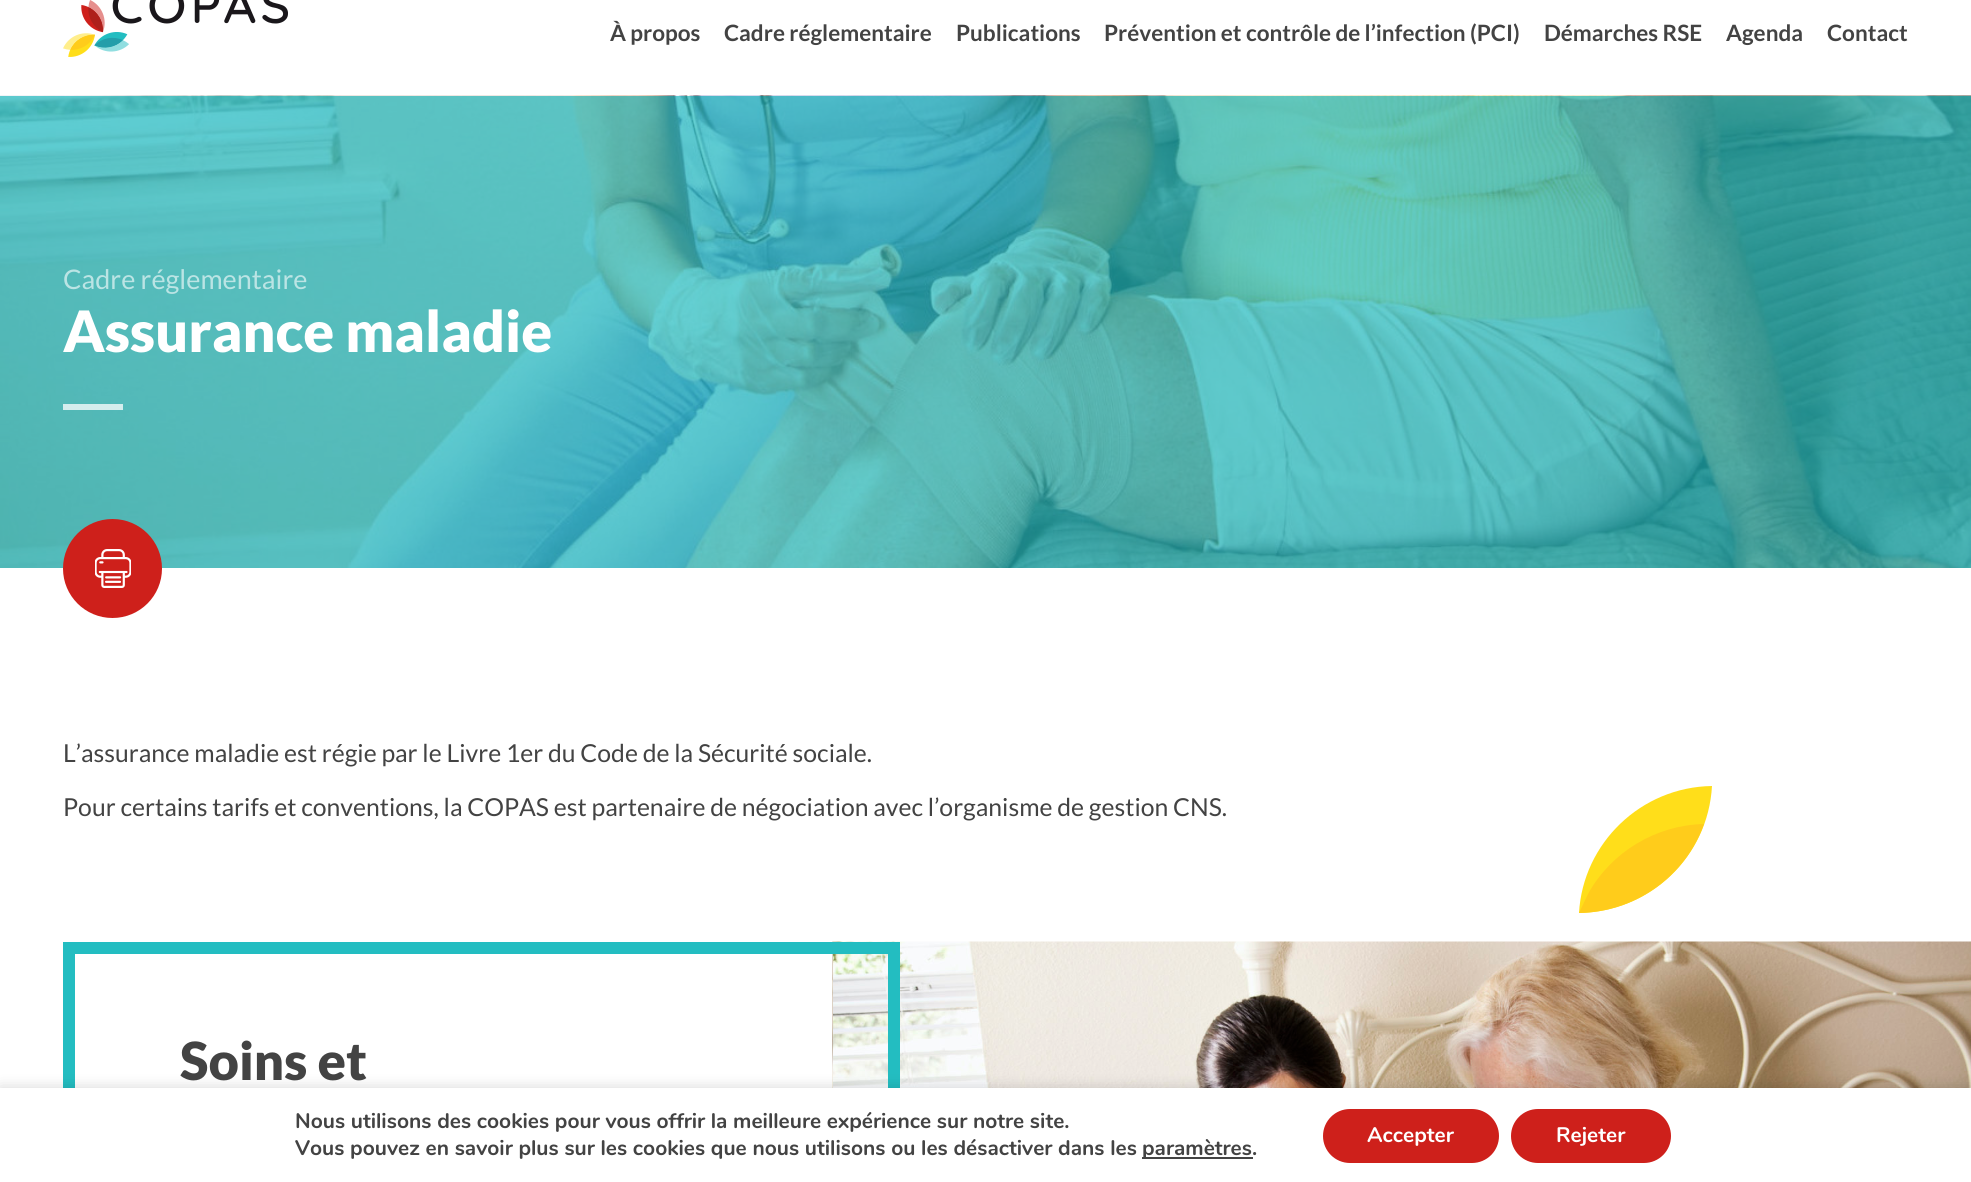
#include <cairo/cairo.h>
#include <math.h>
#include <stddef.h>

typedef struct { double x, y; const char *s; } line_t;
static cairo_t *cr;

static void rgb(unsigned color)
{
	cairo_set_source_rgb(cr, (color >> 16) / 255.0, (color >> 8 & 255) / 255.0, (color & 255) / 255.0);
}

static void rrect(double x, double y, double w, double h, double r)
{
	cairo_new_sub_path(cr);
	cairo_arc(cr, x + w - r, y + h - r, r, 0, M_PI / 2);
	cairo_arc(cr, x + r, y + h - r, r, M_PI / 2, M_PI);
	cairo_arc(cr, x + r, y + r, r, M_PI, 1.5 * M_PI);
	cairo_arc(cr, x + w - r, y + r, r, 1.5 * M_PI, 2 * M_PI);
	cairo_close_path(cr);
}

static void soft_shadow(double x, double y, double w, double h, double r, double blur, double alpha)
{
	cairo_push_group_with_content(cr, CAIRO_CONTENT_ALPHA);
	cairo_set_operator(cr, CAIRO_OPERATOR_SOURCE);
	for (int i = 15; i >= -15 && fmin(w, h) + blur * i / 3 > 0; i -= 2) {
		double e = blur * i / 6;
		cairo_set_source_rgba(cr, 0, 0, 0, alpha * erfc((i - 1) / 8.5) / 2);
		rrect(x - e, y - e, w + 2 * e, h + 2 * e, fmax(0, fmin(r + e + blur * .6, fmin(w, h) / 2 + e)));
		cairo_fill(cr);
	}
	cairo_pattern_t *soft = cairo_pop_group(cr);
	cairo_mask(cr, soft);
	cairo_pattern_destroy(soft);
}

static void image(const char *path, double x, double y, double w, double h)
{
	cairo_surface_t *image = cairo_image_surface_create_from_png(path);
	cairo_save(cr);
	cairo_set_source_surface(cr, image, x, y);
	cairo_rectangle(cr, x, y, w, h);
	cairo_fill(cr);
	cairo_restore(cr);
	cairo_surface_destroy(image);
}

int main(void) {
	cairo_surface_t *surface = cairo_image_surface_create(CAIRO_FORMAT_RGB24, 1971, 1182);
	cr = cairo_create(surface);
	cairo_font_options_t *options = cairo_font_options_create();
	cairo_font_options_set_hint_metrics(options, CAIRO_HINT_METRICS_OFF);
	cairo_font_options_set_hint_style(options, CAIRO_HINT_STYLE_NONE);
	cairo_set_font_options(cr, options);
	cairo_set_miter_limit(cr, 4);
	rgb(0xffffff);
	cairo_paint(cr);
	image("img/1.png", 63, 0, 225, 57);
	image("img/2.png", 0, 95, 1971, 473);
	cairo_set_source_rgba(cr, 1, 1, 1, 0.75);
	cairo_rectangle(cr, 63, 404, 60, 6);
	cairo_fill(cr);
	rgb(0xce201b);
	cairo_arc(cr, 112.5, 568.5, 49.5, 0, 2 * M_PI);
	cairo_fill(cr);
	image("img/3.png", 95, 549, 36, 39);
	rgb(0xffde1a);
	cairo_new_path(cr);
	cairo_move_to(cr, 1579, 913);
	cairo_curve_to(cr, 1650, 912, 1708, 857, 1712, 786);
	cairo_curve_to(cr, 1641, 787, 1583, 843, 1579, 913);
	cairo_close_path(cr);
	cairo_fill(cr);
	rgb(0xffcc1b);
	cairo_new_path(cr);
	cairo_move_to(cr, 1579, 913);
	cairo_curve_to(cr, 1635, 912, 1685, 877, 1704, 824);
	cairo_curve_to(cr, 1656, 825, 1611, 852, 1588, 894);
	cairo_close_path(cr);
	cairo_fill(cr);
	image("img/4.png", 832, 941, 1139, 147);
	cairo_rectangle(cr, 69, 948, 825, 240);
	rgb(0x23bdc1);
	cairo_set_line_width(cr, 12);
	cairo_stroke(cr);
	rgb(0x000000);
	soft_shadow(0, 1088, 1971, 94, 0, 7.5, 0.16);
	rgb(0xffffff);
	cairo_rectangle(cr, 0, 1088, 1971, 94);
	cairo_fill(cr);
	rgb(0x434343);
	cairo_rectangle(cr, 1142, 1157, 111, 2);
	cairo_fill(cr);
	rgb(0xce201b);
	rrect(1323, 1109, 176, 54, 27);
	cairo_fill(cr);
	rrect(1511, 1109, 160, 54, 27);
	cairo_fill(cr);
	cairo_select_font_face(cr, "Lato", CAIRO_FONT_SLANT_NORMAL, CAIRO_FONT_WEIGHT_BOLD);
	cairo_set_font_size(cr, 22.5);
	rgb(0x434343);
	{
		static const line_t items[] = {
			{610, 41, "À propos"},
			{724, 41, "Cadre réglementaire"},
			{956, 41, "Publications"},
			{1104, 41, "Prévention et contrôle de l’infection (PCI)"},
			{1544, 41, "Démarches RSE"},
			{1726, 41, "Agenda"},
			{1827, 41, "Contact"},
		};
		for (size_t i = 0; i < sizeof items / sizeof *items; i++) {
			cairo_move_to(cr, items[i].x, items[i].y);
			cairo_show_text(cr, items[i].s);
		}
	}
	cairo_select_font_face(cr, "Lato", CAIRO_FONT_SLANT_NORMAL, CAIRO_FONT_WEIGHT_NORMAL);
	cairo_set_font_size(cr, 27);
	rgb(0xbbe4e4);
	cairo_move_to(cr, 63, 289);
	cairo_show_text(cr, "Cadre réglementaire");
	cairo_select_font_face(cr, "Lato Black", CAIRO_FONT_SLANT_NORMAL, CAIRO_FONT_WEIGHT_NORMAL);
	cairo_set_font_size(cr, 57);
	rgb(0xffffff);
	cairo_move_to(cr, 63, 352);
	cairo_show_text(cr, "Assurance maladie");
	cairo_select_font_face(cr, "Lato", CAIRO_FONT_SLANT_NORMAL, CAIRO_FONT_WEIGHT_NORMAL);
	cairo_set_font_size(cr, 24.75);
	rgb(0x434343);
	cairo_move_to(cr, 63, 762);
	cairo_show_text(cr, "L’assurance maladie est régie par le Livre 1er du Code de la Sécurité sociale.");
	cairo_move_to(cr, 63, 816);
	cairo_show_text(cr, "Pour certains tarifs et conventions, la COPAS est partenaire de négociation avec l’organisme de gestion CNS.");
	cairo_select_font_face(cr, "Lato Black", CAIRO_FONT_SLANT_NORMAL, CAIRO_FONT_WEIGHT_NORMAL);
	cairo_set_font_size(cr, 52.5);
	cairo_move_to(cr, 180, 1080);
	cairo_show_text(cr, "Soins et");
	cairo_select_font_face(cr, "Nunito", CAIRO_FONT_SLANT_NORMAL, CAIRO_FONT_WEIGHT_BOLD);
	cairo_set_font_size(cr, 21);
	{
		static const line_t items[] = {
			{295, 1128, "Nous utilisons des cookies pour vous offrir la meilleure expérience sur notre site."},
			{295, 1155, "Vous pouvez en savoir plus sur les cookies que nous utilisons ou les désactiver dans les"},
			{1142, 1155, "paramètres."},
		};
		for (size_t i = 0; i < sizeof items / sizeof *items; i++) {
			cairo_move_to(cr, items[i].x, items[i].y);
			cairo_show_text(cr, items[i].s);
		}
	}
	rgb(0xffffff);
	cairo_move_to(cr, 1367, 1142);
	cairo_show_text(cr, "Accepter");
	cairo_move_to(cr, 1556, 1142);
	cairo_show_text(cr, "Rejeter");
	cairo_surface_write_to_png(surface, "page.png");
	cairo_font_options_destroy(options);
	cairo_destroy(cr);
	cairo_surface_destroy(surface);
	return 0;
}
